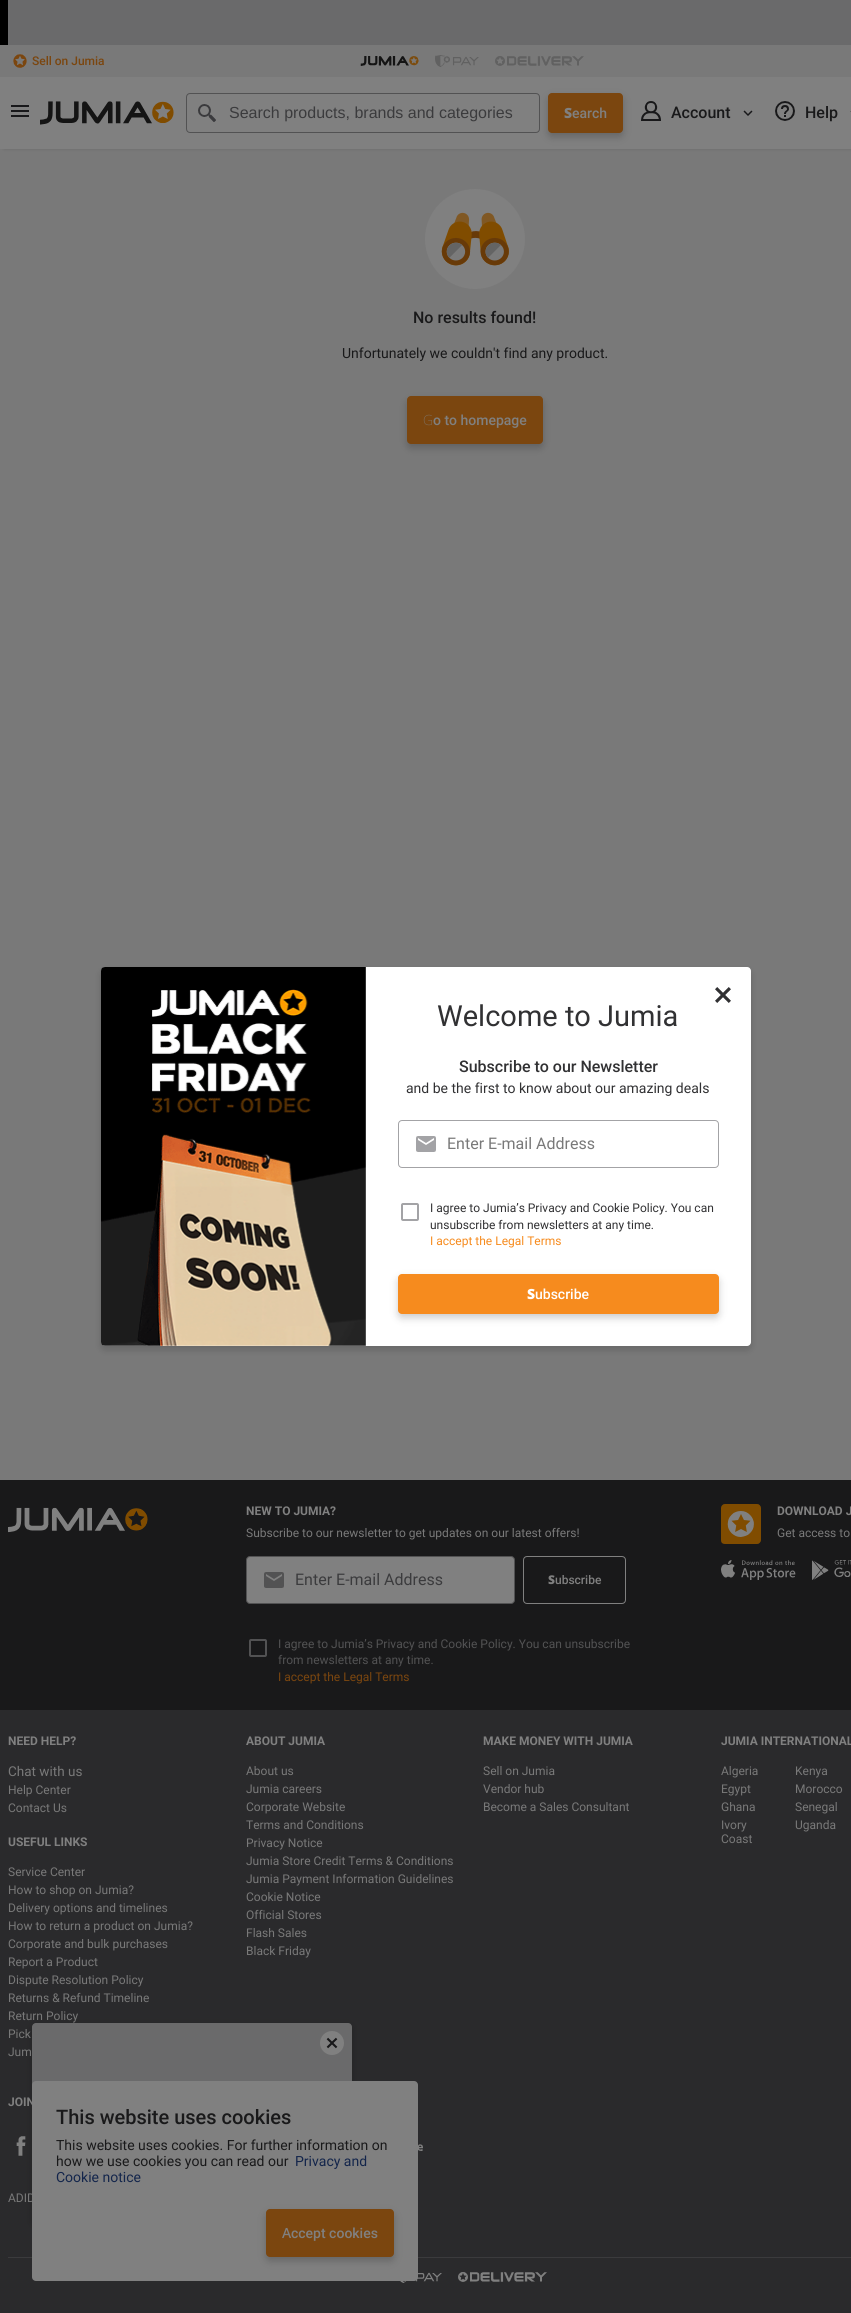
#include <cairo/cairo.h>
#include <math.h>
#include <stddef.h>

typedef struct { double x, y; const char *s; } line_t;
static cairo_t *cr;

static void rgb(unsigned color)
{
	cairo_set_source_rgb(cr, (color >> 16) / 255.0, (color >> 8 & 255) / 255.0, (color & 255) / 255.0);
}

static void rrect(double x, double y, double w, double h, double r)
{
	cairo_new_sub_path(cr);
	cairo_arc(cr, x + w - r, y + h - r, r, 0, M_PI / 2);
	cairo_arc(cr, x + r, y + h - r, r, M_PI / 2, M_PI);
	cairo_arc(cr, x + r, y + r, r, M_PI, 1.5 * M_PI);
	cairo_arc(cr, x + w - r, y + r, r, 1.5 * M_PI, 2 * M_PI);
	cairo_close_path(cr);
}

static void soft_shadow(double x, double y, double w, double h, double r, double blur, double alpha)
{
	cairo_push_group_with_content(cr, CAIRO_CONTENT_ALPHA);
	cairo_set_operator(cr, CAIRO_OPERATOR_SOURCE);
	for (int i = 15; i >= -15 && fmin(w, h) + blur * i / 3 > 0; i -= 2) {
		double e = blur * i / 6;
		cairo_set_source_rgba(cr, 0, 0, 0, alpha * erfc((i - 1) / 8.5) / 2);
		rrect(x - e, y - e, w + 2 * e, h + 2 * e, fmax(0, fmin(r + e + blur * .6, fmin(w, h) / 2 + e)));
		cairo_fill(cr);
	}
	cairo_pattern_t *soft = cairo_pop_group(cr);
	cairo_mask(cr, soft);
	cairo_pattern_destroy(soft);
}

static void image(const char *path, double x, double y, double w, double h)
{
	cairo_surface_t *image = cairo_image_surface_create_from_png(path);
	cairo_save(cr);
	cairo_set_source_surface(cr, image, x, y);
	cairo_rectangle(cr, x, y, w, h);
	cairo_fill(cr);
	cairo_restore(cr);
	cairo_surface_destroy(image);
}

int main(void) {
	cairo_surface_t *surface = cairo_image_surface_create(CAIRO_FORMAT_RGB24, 851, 2313);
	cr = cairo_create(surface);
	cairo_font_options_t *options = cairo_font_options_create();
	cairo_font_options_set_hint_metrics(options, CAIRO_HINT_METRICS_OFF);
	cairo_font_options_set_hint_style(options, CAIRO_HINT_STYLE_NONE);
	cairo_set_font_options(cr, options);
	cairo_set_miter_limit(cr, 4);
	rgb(0x797979);
	cairo_paint(cr);
	rgb(0x000000);
	cairo_rectangle(cr, 0, 0, 8, 45);
	cairo_fill(cr);
	rgb(0x6a6a6b);
	cairo_rectangle(cr, 8, 0, 843, 45);
	cairo_fill(cr);
	image("img/1.png", 13, 54, 14, 14);
	image("img/2.png", 360, 56, 59, 10);
	image("img/3.png", 435, 55, 44, 12);
	image("img/4.png", 495, 56, 89, 10);
	rgb(0x000000);
	soft_shadow(4, 85, 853, 64, 0, 2, 0.12);
	rgb(0x808080);
	cairo_rectangle(cr, 0, 77, 851, 72);
	cairo_fill(cr);
	image("img/5.png", 11, 105, 18, 12);
	image("img/6.png", 40, 101, 134, 24);
	rrect(186.5, 93.5, 353, 39, 3.5);
	rgb(0x525253);
	cairo_set_line_width(cr, 1);
	cairo_stroke(cr);
	image("img/7.png", 198, 104, 18, 18);
	rgb(0x000000);
	soft_shadow(548, 97, 75, 40, 4, 4, 0.2);
	rgb(0x7b460f);
	rrect(548, 93, 75, 40, 4);
	cairo_fill(cr);
	image("img/8.png", 641, 101, 20, 20);
	image("img/9.png", 743, 110, 10, 6);
	image("img/10.png", 775, 101, 20, 20);
	rgb(0x676767);
	cairo_rectangle(cr, 850, 111, 1, 1);
	cairo_fill(cr);
	rgb(0x808080);
	cairo_arc(cr, 475, 239, 50, 0, 2 * M_PI);
	cairo_fill(cr);
	image("img/11.png", 441, 212, 68, 54);
	rgb(0x000000);
	soft_shadow(407, 400, 136, 48, 4, 4, 0.2);
	rgb(0x7b460f);
	rrect(407, 396, 136, 48, 4);
	cairo_fill(cr);
	rgb(0x000000);
	soft_shadow(101, 971, 650, 379, 4, 4, 0.15);
	rgb(0xffffff);
	rrect(101, 967, 650, 379, 4);
	cairo_fill(cr);
	image("img/12.png", 715, 987, 16, 16);
	image("img/13.png", 101, 967, 265, 379);
	rrect(398.5, 1120.5, 320, 47, 3.5);
	rgb(0xa3a3a6);
	cairo_stroke(cr);
	image("img/14.png", 416, 1136, 20, 16);
	rrect(402, 1204, 16, 16, 1);
	cairo_set_line_width(cr, 2);
	cairo_stroke(cr);
	rgb(0x000000);
	soft_shadow(398, 1278, 321, 40, 4, 4, 0.2);
	rgb(0xf68b1e);
	rrect(398, 1274, 321, 40, 4);
	cairo_fill(cr);
	rgb(0x2a2a2c);
	cairo_rectangle(cr, 0, 1710, 851, 603);
	cairo_fill(cr);
	rgb(0x19191a);
	cairo_rectangle(cr, 0, 1480, 851, 230);
	cairo_fill(cr);
	image("img/15.png", 8, 1507, 140, 26);
	rgb(0x808080);
	rrect(246.5, 1556.5, 268, 47, 3.5);
	cairo_fill_preserve(cr);
	rgb(0x525253);
	cairo_set_line_width(cr, 1);
	cairo_stroke(cr);
	image("img/16.png", 264, 1572, 20, 16);
	rrect(523.5, 1556.5, 102, 47, 3.5);
	rgb(0x808080);
	cairo_stroke(cr);
	rrect(250, 1640, 16, 16, 1);
	rgb(0x525253);
	cairo_set_line_width(cr, 2);
	cairo_stroke(cr);
	image("img/17.png", 721, 1504, 40, 40);
	image("img/18.png", 721, 1560, 75, 20);
	image("img/19.png", 812, 1560, 39, 20);
	image("img/20.png", 16, 2136, 10, 20);
	image("img/21.png", 418, 2144, 5, 7);
	rgb(0x3b3b3d);
	cairo_rectangle(cr, 8, 2257, 843, 1);
	cairo_fill(cr);
	image("img/22.png", 400, 2272, 42, 11);
	image("img/23.png", 458, 2272, 89, 10);
	rgb(0x000000);
	soft_shadow(31, 2024, 322, 202, 5, 3.5, 0.15);
	cairo_select_font_face(cr, "Roboto Medium", CAIRO_FONT_SLANT_NORMAL, CAIRO_FONT_WEIGHT_NORMAL);
	cairo_set_font_size(cr, 12);
	rgb(0x7b460f);
	cairo_move_to(cr, 32, 65);
	cairo_show_text(cr, "Sell on Jumia");
	cairo_select_font_face(cr, "Liberation Sans", CAIRO_FONT_SLANT_NORMAL, CAIRO_FONT_WEIGHT_NORMAL);
	cairo_set_font_size(cr, 16);
	rgb(0x3b3b3d);
	cairo_move_to(cr, 229, 118);
	cairo_show_text(cr, "Search products, brands and categories");
	cairo_select_font_face(cr, "Noto Sans Black", CAIRO_FONT_SLANT_NORMAL, CAIRO_FONT_WEIGHT_NORMAL);
	cairo_set_font_size(cr, 14);
	rgb(0x808080);
	cairo_move_to(cr, 564, 118);
	cairo_show_text(cr, "S");
	cairo_select_font_face(cr, "Roboto Medium", CAIRO_FONT_SLANT_NORMAL, CAIRO_FONT_WEIGHT_NORMAL);
	cairo_move_to(cr, 572, 118);
	cairo_show_text(cr, "earch");
	cairo_set_font_size(cr, 16);
	rgb(0x19191a);
	{
		static const line_t items[] = {
			{671, 118, "Account"},
			{805, 118, "Help"},
			{413, 323, "No results found!"},
		};
		for (size_t i = 0; i < sizeof items / sizeof *items; i++) {
			cairo_move_to(cr, items[i].x, items[i].y);
			cairo_show_text(cr, items[i].s);
		}
	}
	cairo_select_font_face(cr, "Roboto", CAIRO_FONT_SLANT_NORMAL, CAIRO_FONT_WEIGHT_NORMAL);
	cairo_set_font_size(cr, 14);
	cairo_move_to(cr, 342, 358);
	cairo_show_text(cr, "Unfortunately we couldn't find any product.");
	cairo_select_font_face(cr, "Noto Sans Thin", CAIRO_FONT_SLANT_NORMAL, CAIRO_FONT_WEIGHT_NORMAL);
	rgb(0x808080);
	cairo_move_to(cr, 423, 425);
	cairo_show_text(cr, "G");
	cairo_select_font_face(cr, "Roboto Medium", CAIRO_FONT_SLANT_NORMAL, CAIRO_FONT_WEIGHT_NORMAL);
	cairo_move_to(cr, 433, 425);
	cairo_show_text(cr, "o to homepage");
	cairo_select_font_face(cr, "Roboto", CAIRO_FONT_SLANT_NORMAL, CAIRO_FONT_WEIGHT_NORMAL);
	cairo_set_font_size(cr, 29);
	rgb(0x313133);
	cairo_move_to(cr, 437, 1026);
	cairo_show_text(cr, "Welcome to Jumia");
	cairo_select_font_face(cr, "Roboto Medium", CAIRO_FONT_SLANT_NORMAL, CAIRO_FONT_WEIGHT_NORMAL);
	cairo_set_font_size(cr, 16);
	cairo_move_to(cr, 459, 1072);
	cairo_show_text(cr, "Subscribe to our Newsletter");
	cairo_select_font_face(cr, "Roboto", CAIRO_FONT_SLANT_NORMAL, CAIRO_FONT_WEIGHT_NORMAL);
	cairo_set_font_size(cr, 14);
	cairo_move_to(cr, 406, 1093);
	cairo_show_text(cr, "and be the first to know about our amazing deals");
	cairo_set_font_size(cr, 16);
	rgb(0x797979);
	cairo_move_to(cr, 447, 1149);
	cairo_show_text(cr, "Enter E-mail Address");
	cairo_set_font_size(cr, 12);
	rgb(0x313133);
	cairo_move_to(cr, 430, 1212);
	cairo_show_text(cr, "I agree to Jumia’s Privacy and Cookie Policy. You can");
	cairo_move_to(cr, 430, 1229);
	cairo_show_text(cr, "unsubscribe from newsletters at any time.");
	rgb(0xf68b1e);
	cairo_move_to(cr, 430, 1245);
	cairo_show_text(cr, "I accept the Legal Terms");
	cairo_select_font_face(cr, "Noto Sans Black", CAIRO_FONT_SLANT_NORMAL, CAIRO_FONT_WEIGHT_NORMAL);
	cairo_set_font_size(cr, 14);
	rgb(0xffffff);
	cairo_move_to(cr, 527, 1299);
	cairo_show_text(cr, "S");
	cairo_select_font_face(cr, "Roboto Medium", CAIRO_FONT_SLANT_NORMAL, CAIRO_FONT_WEIGHT_NORMAL);
	cairo_move_to(cr, 535, 1299);
	cairo_show_text(cr, "ubscribe");
	cairo_select_font_face(cr, "Roboto", CAIRO_FONT_SLANT_NORMAL, CAIRO_FONT_WEIGHT_BOLD);
	cairo_set_font_size(cr, 12);
	rgb(0x808080);
	cairo_move_to(cr, 246, 1515);
	cairo_show_text(cr, "NEW TO JUMIA?");
	cairo_select_font_face(cr, "Roboto", CAIRO_FONT_SLANT_NORMAL, CAIRO_FONT_WEIGHT_NORMAL);
	rgb(0x797979);
	cairo_move_to(cr, 246, 1537);
	cairo_show_text(cr, "Subscribe to our newsletter to get updates on our latest offers!");
	cairo_set_font_size(cr, 16);
	rgb(0x3b3b3d);
	cairo_move_to(cr, 295, 1585);
	cairo_show_text(cr, "Enter E-mail Address");
	cairo_select_font_face(cr, "Noto Sans Black", CAIRO_FONT_SLANT_NORMAL, CAIRO_FONT_WEIGHT_NORMAL);
	cairo_set_font_size(cr, 12);
	rgb(0x808080);
	cairo_move_to(cr, 548, 1584);
	cairo_show_text(cr, "S");
	cairo_select_font_face(cr, "Roboto Medium", CAIRO_FONT_SLANT_NORMAL, CAIRO_FONT_WEIGHT_NORMAL);
	cairo_move_to(cr, 555, 1584);
	cairo_show_text(cr, "ubscribe");
	cairo_select_font_face(cr, "Roboto", CAIRO_FONT_SLANT_NORMAL, CAIRO_FONT_WEIGHT_NORMAL);
	rgb(0x525253);
	cairo_move_to(cr, 278, 1648);
	cairo_show_text(cr, "I agree to Jumia’s Privacy and Cookie Policy. You can unsubscribe");
	cairo_move_to(cr, 278, 1664);
	cairo_show_text(cr, "from newsletters at any time.");
	rgb(0x7b460f);
	cairo_move_to(cr, 278, 1681);
	cairo_show_text(cr, "I accept the Legal Terms");
	cairo_select_font_face(cr, "Roboto", CAIRO_FONT_SLANT_NORMAL, CAIRO_FONT_WEIGHT_BOLD);
	rgb(0x808080);
	cairo_move_to(cr, 777, 1515);
	cairo_show_text(cr, "DOWNLOAD J");
	cairo_select_font_face(cr, "Roboto", CAIRO_FONT_SLANT_NORMAL, CAIRO_FONT_WEIGHT_NORMAL);
	rgb(0x797979);
	cairo_move_to(cr, 777, 1537);
	cairo_show_text(cr, "Get access to");
	cairo_select_font_face(cr, "Roboto", CAIRO_FONT_SLANT_NORMAL, CAIRO_FONT_WEIGHT_BOLD);
	rgb(0x808080);
	cairo_move_to(cr, 8, 1745);
	cairo_show_text(cr, "NEED HELP?");
	cairo_select_font_face(cr, "Roboto", CAIRO_FONT_SLANT_NORMAL, CAIRO_FONT_WEIGHT_NORMAL);
	cairo_set_font_size(cr, 13.5);
	rgb(0x797979);
	cairo_move_to(cr, 8, 1776);
	cairo_show_text(cr, "Chat with us");
	cairo_set_font_size(cr, 12);
	cairo_move_to(cr, 8, 1794);
	cairo_show_text(cr, "Help Center");
	cairo_move_to(cr, 8, 1812);
	cairo_show_text(cr, "Contact Us");
	cairo_select_font_face(cr, "Roboto", CAIRO_FONT_SLANT_NORMAL, CAIRO_FONT_WEIGHT_BOLD);
	rgb(0x808080);
	cairo_move_to(cr, 8, 1846);
	cairo_show_text(cr, "USEFUL LINKS");
	cairo_select_font_face(cr, "Roboto", CAIRO_FONT_SLANT_NORMAL, CAIRO_FONT_WEIGHT_NORMAL);
	rgb(0x797979);
	{
		static const line_t items[] = {
			{8, 1876, "Service Center"},
			{8, 1894, "How to shop on Jumia?"},
			{8, 1912, "Delivery options and timelines"},
			{8, 1930, "How to return a product on Jumia?"},
			{8, 1948, "Corporate and bulk purchases"},
			{8, 1966, "Report a Product"},
			{8, 1984, "Dispute Resolution Policy"},
			{8, 2002, "Returns & Refund Timeline"},
			{8, 2020, "Return Policy"},
			{8, 2038, "Pick"},
			{8, 2056, "Jum"},
		};
		for (size_t i = 0; i < sizeof items / sizeof *items; i++) {
			cairo_move_to(cr, items[i].x, items[i].y);
			cairo_show_text(cr, items[i].s);
		}
	}
	cairo_select_font_face(cr, "Roboto", CAIRO_FONT_SLANT_NORMAL, CAIRO_FONT_WEIGHT_BOLD);
	rgb(0x808080);
	cairo_move_to(cr, 246, 1745);
	cairo_show_text(cr, "ABOUT JUMIA");
	cairo_select_font_face(cr, "Roboto", CAIRO_FONT_SLANT_NORMAL, CAIRO_FONT_WEIGHT_NORMAL);
	rgb(0x797979);
	{
		static const line_t items[] = {
			{246, 1775, "About us"},
			{246, 1793, "Jumia careers"},
			{246, 1811, "Corporate Website"},
			{246, 1829, "Terms and Conditions"},
			{246, 1847, "Privacy Notice"},
			{246, 1865, "Jumia Store Credit Terms & Conditions"},
			{246, 1883, "Jumia Payment Information Guidelines"},
			{246, 1901, "Cookie Notice"},
			{246, 1919, "Official Stores"},
			{246, 1937, "Flash Sales"},
			{246, 1955, "Black Friday"},
		};
		for (size_t i = 0; i < sizeof items / sizeof *items; i++) {
			cairo_move_to(cr, items[i].x, items[i].y);
			cairo_show_text(cr, items[i].s);
		}
	}
	cairo_select_font_face(cr, "Roboto", CAIRO_FONT_SLANT_NORMAL, CAIRO_FONT_WEIGHT_BOLD);
	rgb(0x808080);
	cairo_move_to(cr, 483, 1745);
	cairo_show_text(cr, "MAKE MONEY WITH JUMIA");
	cairo_select_font_face(cr, "Roboto", CAIRO_FONT_SLANT_NORMAL, CAIRO_FONT_WEIGHT_NORMAL);
	rgb(0x797979);
	{
		static const line_t items[] = {
			{483, 1775, "Sell on Jumia"},
			{483, 1793, "Vendor hub"},
			{483, 1811, "Become a Sales Consultant"},
		};
		for (size_t i = 0; i < sizeof items / sizeof *items; i++) {
			cairo_move_to(cr, items[i].x, items[i].y);
			cairo_show_text(cr, items[i].s);
		}
	}
	cairo_select_font_face(cr, "Roboto", CAIRO_FONT_SLANT_NORMAL, CAIRO_FONT_WEIGHT_BOLD);
	rgb(0x808080);
	cairo_move_to(cr, 721, 1745);
	cairo_show_text(cr, "JUMIA INTERNATIONAL");
	cairo_select_font_face(cr, "Roboto", CAIRO_FONT_SLANT_NORMAL, CAIRO_FONT_WEIGHT_NORMAL);
	rgb(0x797979);
	{
		static const line_t items[] = {
			{721, 1775, "Algeria"},
			{721, 1793, "Egypt"},
			{721, 1811, "Ghana"},
			{721, 1829, "Ivory"},
			{721, 1843, "Coast"},
			{795, 1775, "Kenya"},
			{795, 1793, "Morocco"},
			{795, 1811, "Senegal"},
			{795, 1829, "Uganda"},
		};
		for (size_t i = 0; i < sizeof items / sizeof *items; i++) {
			cairo_move_to(cr, items[i].x, items[i].y);
			cairo_show_text(cr, items[i].s);
		}
	}
	cairo_select_font_face(cr, "Roboto", CAIRO_FONT_SLANT_NORMAL, CAIRO_FONT_WEIGHT_BOLD);
	rgb(0x808080);
	cairo_move_to(cr, 8, 2106);
	cairo_show_text(cr, "JOIN");
	cairo_select_font_face(cr, "Roboto", CAIRO_FONT_SLANT_NORMAL, CAIRO_FONT_WEIGHT_NORMAL);
	rgb(0x797979);
	cairo_move_to(cr, 8, 2202);
	cairo_show_text(cr, "ADID");
	rgb(0x6a6a6b);
	rrect(32, 2023, 320, 200, 4);
	cairo_fill(cr);
	rgb(0x808080);
	cairo_arc(cr, 332, 2043, 12, 0, 2 * M_PI);
	cairo_fill(cr);
	image("img/24.png", 326, 2037, 12, 12);
	rrect(32, 2081, 386, 200, 4);
	cairo_fill(cr);
	cairo_select_font_face(cr, "Roboto Medium", CAIRO_FONT_SLANT_NORMAL, CAIRO_FONT_WEIGHT_NORMAL);
	cairo_set_font_size(cr, 20);
	rgb(0x19191a);
	cairo_move_to(cr, 56, 2124);
	cairo_show_text(cr, "This website uses cookies");
	cairo_select_font_face(cr, "Roboto", CAIRO_FONT_SLANT_NORMAL, CAIRO_FONT_WEIGHT_NORMAL);
	cairo_set_font_size(cr, 14);
	cairo_move_to(cr, 56, 2150);
	cairo_show_text(cr, "This website uses cookies. For further information on");
	cairo_move_to(cr, 56, 2166);
	cairo_show_text(cr, "how we use cookies you can read our");
	rgb(0x13254b);
	cairo_move_to(cr, 295, 2166);
	cairo_show_text(cr, "Privacy and");
	cairo_move_to(cr, 56, 2182);
	cairo_show_text(cr, "Cookie notice");
	rgb(0x000000);
	soft_shadow(266, 2213, 128, 48, 4, 4, 0.2);
	rgb(0x7b460f);
	rrect(266, 2209, 128, 48, 4);
	cairo_fill(cr);
	cairo_select_font_face(cr, "Noto Sans Medium", CAIRO_FONT_SLANT_NORMAL, CAIRO_FONT_WEIGHT_NORMAL);
	rgb(0x808080);
	cairo_move_to(cr, 282, 2238);
	cairo_show_text(cr, "A");
	cairo_select_font_face(cr, "Roboto Medium", CAIRO_FONT_SLANT_NORMAL, CAIRO_FONT_WEIGHT_NORMAL);
	cairo_move_to(cr, 291, 2238);
	cairo_show_text(cr, "ccept cookies");
	cairo_surface_write_to_png(surface, "page.png");
	cairo_font_options_destroy(options);
	cairo_destroy(cr);
	cairo_surface_destroy(surface);
	return 0;
}
